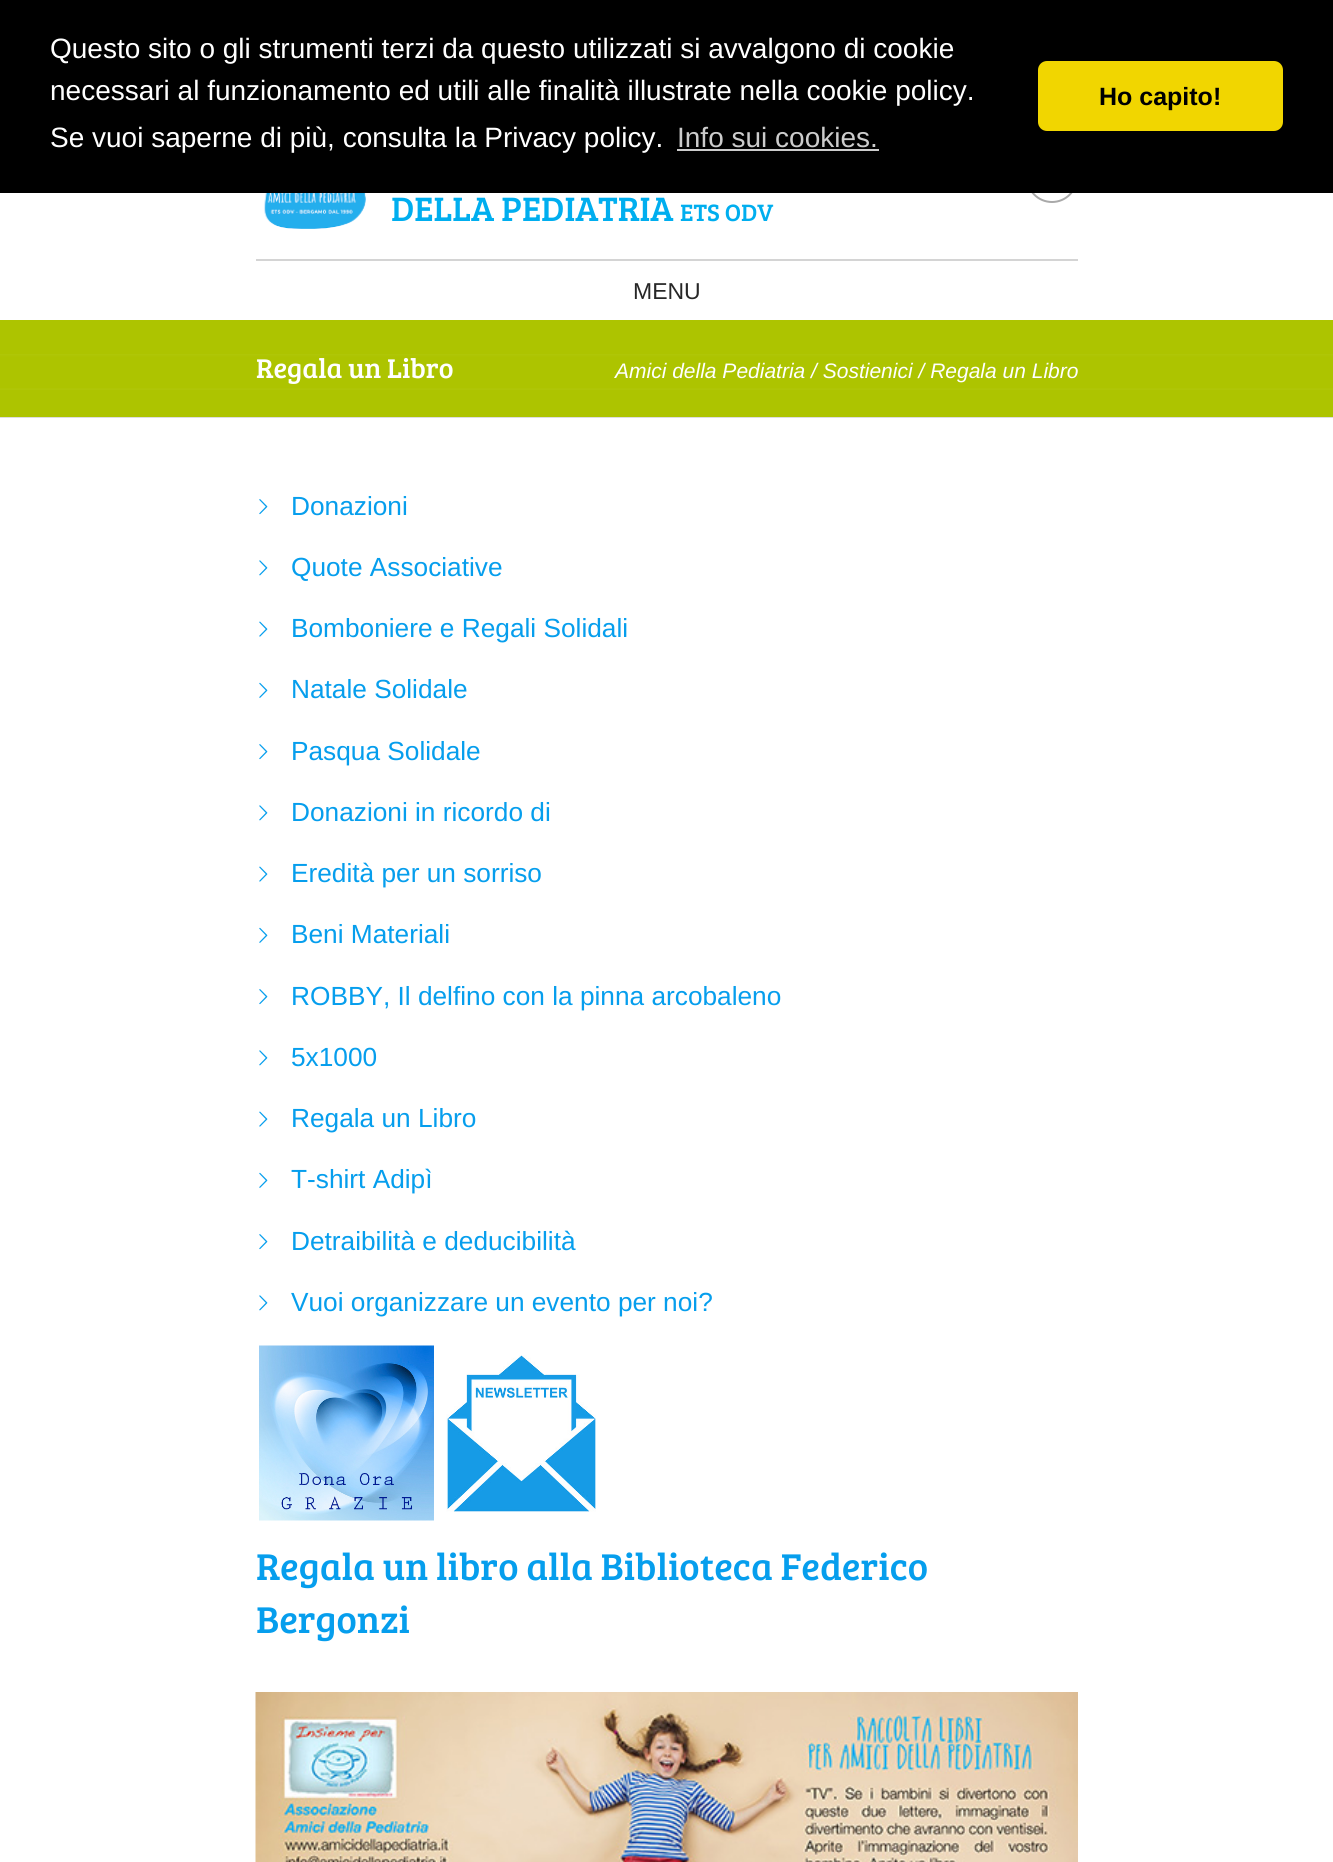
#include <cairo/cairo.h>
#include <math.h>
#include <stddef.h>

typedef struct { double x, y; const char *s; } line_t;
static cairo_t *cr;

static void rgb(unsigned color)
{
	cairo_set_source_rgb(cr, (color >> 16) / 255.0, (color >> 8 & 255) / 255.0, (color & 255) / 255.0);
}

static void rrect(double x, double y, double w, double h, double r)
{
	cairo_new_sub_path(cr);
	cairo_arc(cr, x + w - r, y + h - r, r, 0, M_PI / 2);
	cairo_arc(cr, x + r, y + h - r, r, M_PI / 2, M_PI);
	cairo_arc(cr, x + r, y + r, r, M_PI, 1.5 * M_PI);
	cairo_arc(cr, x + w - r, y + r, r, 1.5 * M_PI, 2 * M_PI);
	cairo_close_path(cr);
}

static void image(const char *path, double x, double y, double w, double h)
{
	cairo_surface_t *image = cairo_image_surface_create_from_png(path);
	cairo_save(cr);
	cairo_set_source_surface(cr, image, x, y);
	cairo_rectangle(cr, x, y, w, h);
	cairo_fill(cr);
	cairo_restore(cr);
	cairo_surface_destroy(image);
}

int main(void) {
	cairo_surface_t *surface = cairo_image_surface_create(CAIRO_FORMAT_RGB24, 1333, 1862);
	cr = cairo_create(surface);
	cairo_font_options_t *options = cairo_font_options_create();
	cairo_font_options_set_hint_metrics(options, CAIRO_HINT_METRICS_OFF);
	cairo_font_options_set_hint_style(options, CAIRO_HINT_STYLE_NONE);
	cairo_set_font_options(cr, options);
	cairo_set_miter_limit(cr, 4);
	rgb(0xffffff);
	cairo_paint(cr);
	cairo_arc(cr, 1052, 177, 25, 0, 2 * M_PI);
	rgb(0xa9a9a9);
	cairo_stroke(cr);
	rgb(0x000000);
	cairo_rectangle(cr, 0, 0, 1333, 193);
	cairo_fill(cr);
	rgb(0xcccccc);
	cairo_rectangle(cr, 677, 149, 202, 2);
	cairo_fill(cr);
	rgb(0xf1d600);
	rrect(1038, 61, 245, 70, 9);
	cairo_fill(cr);
	image("img/1.png", 255, 193, 116, 36);
	rgb(0xd4d4d4);
	cairo_rectangle(cr, 256, 259, 822, 2);
	cairo_fill(cr);
	rgb(0xadc400);
	cairo_rectangle(cr, 0, 320, 1333, 97);
	cairo_fill(cr);
	image("img/2.png", 0, 354, 1333, 36);
	rgb(0xdddddd);
	cairo_rectangle(cr, 0, 417, 1333, 1);
	cairo_fill(cr);
	image("img/3.png", 259, 499, 9, 16);
	image("img/4.png", 259, 560, 9, 16);
	image("img/5.png", 259, 621, 9, 16);
	image("img/6.png", 259, 682, 9, 16);
	image("img/3.png", 259, 744, 9, 16);
	image("img/4.png", 259, 805, 9, 16);
	image("img/5.png", 259, 866, 9, 16);
	image("img/6.png", 259, 927, 9, 16);
	image("img/3.png", 259, 989, 9, 16);
	image("img/4.png", 259, 1050, 9, 16);
	image("img/5.png", 259, 1111, 9, 16);
	image("img/6.png", 259, 1172, 9, 16);
	image("img/3.png", 259, 1234, 9, 16);
	image("img/4.png", 259, 1295, 9, 16);
	image("img/7.png", 259, 1345, 175, 176);
	image("img/8.png", 446, 1355, 150, 157);
	image("img/9.png", 255, 1692, 823, 170);
	cairo_select_font_face(cr, "Liberation Sans", CAIRO_FONT_SLANT_NORMAL, CAIRO_FONT_WEIGHT_NORMAL);
	cairo_set_font_size(cr, 28);
	rgb(0xffffff);
	{
		static const line_t items[] = {
			{50, 58, "Questo sito o gli strumenti terzi da questo utilizzati si avvalgono di cookie"},
			{50, 100, "necessari al funzionamento ed utili alle finalità illustrate nella cookie policy."},
			{50, 147, "Se vuoi saperne di più, consulta la Privacy policy."},
		};
		for (size_t i = 0; i < sizeof items / sizeof *items; i++) {
			cairo_move_to(cr, items[i].x, items[i].y);
			cairo_show_text(cr, items[i].s);
		}
	}
	rgb(0xcccccc);
	cairo_move_to(cr, 677, 147);
	cairo_show_text(cr, "Info sui cookies.");
	cairo_select_font_face(cr, "Liberation Sans", CAIRO_FONT_SLANT_NORMAL, CAIRO_FONT_WEIGHT_BOLD);
	cairo_set_font_size(cr, 25);
	rgb(0x000000);
	cairo_move_to(cr, 1099, 105);
	cairo_show_text(cr, "Ho capito!");
	cairo_select_font_face(cr, "Bree Serif", CAIRO_FONT_SLANT_NORMAL, CAIRO_FONT_WEIGHT_NORMAL);
	cairo_set_font_size(cr, 35);
	rgb(0x00aeef);
	cairo_move_to(cr, 391, 221);
	cairo_show_text(cr, "DELLA PEDIATRIA");
	cairo_set_font_size(cr, 24.5);
	cairo_move_to(cr, 680, 221);
	cairo_show_text(cr, "ETS ODV");
	cairo_select_font_face(cr, "Liberation Sans", CAIRO_FONT_SLANT_NORMAL, CAIRO_FONT_WEIGHT_NORMAL);
	cairo_set_font_size(cr, 23);
	rgb(0x272727);
	cairo_move_to(cr, 633, 299);
	cairo_show_text(cr, "MENU");
	cairo_select_font_face(cr, "Bree Serif", CAIRO_FONT_SLANT_NORMAL, CAIRO_FONT_WEIGHT_NORMAL);
	cairo_set_font_size(cr, 28);
	rgb(0xffffff);
	cairo_move_to(cr, 256, 378);
	cairo_show_text(cr, "Regala un Libro");
	cairo_select_font_face(cr, "Liberation Sans", CAIRO_FONT_SLANT_ITALIC, CAIRO_FONT_WEIGHT_NORMAL);
	cairo_set_font_size(cr, 21);
	cairo_move_to(cr, 615, 378);
	cairo_show_text(cr, "Amici della Pediatria / Sostienici / Regala un Libro");
	cairo_select_font_face(cr, "Liberation Sans", CAIRO_FONT_SLANT_NORMAL, CAIRO_FONT_WEIGHT_NORMAL);
	cairo_set_font_size(cr, 26.25);
	rgb(0x069eed);
	{
		static const line_t items[] = {
			{291, 515, "Donazioni"},
			{291, 576, "Quote Associative"},
			{291, 637, "Bomboniere e Regali Solidali"},
			{291, 698, "Natale Solidale"},
			{291, 760, "Pasqua Solidale"},
			{291, 821, "Donazioni in ricordo di"},
			{291, 882, "Eredità per un sorriso"},
			{291, 943, "Beni Materiali"},
			{291, 1005, "ROBBY, Il delfino con la pinna arcobaleno"},
			{291, 1066, "5x1000"},
			{291, 1127, "Regala un Libro"},
			{291, 1188, "T-shirt Adipì"},
			{291, 1250, "Detraibilità e deducibilità"},
			{291, 1311, "Vuoi organizzare un evento per noi?"},
		};
		for (size_t i = 0; i < sizeof items / sizeof *items; i++) {
			cairo_move_to(cr, items[i].x, items[i].y);
			cairo_show_text(cr, items[i].s);
		}
	}
	cairo_select_font_face(cr, "Bree Serif", CAIRO_FONT_SLANT_NORMAL, CAIRO_FONT_WEIGHT_NORMAL);
	cairo_set_font_size(cr, 38.5);
	cairo_move_to(cr, 256, 1580);
	cairo_show_text(cr, "Regala un libro alla Biblioteca Federico");
	cairo_move_to(cr, 256, 1633);
	cairo_show_text(cr, "Bergonzi");
	cairo_surface_write_to_png(surface, "page.png");
	cairo_font_options_destroy(options);
	cairo_destroy(cr);
	cairo_surface_destroy(surface);
	return 0;
}
